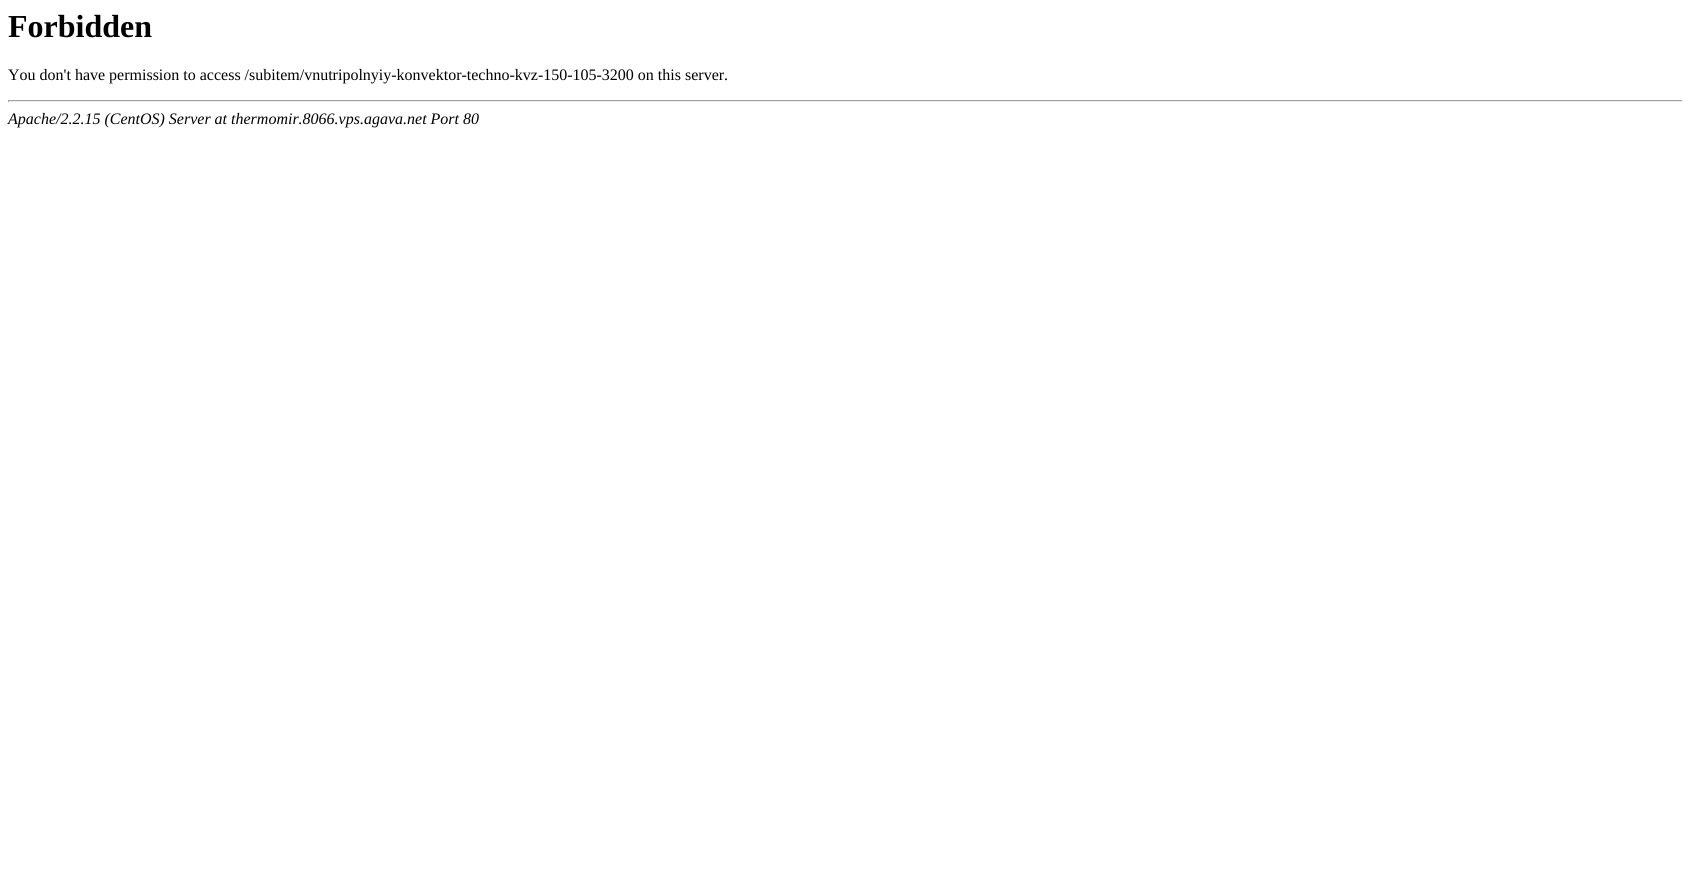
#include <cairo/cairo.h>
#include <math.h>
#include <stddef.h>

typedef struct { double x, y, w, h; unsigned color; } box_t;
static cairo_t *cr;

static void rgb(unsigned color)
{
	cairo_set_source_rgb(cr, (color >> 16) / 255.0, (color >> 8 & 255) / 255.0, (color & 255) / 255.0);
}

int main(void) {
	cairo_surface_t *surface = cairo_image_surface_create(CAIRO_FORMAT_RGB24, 1691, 891);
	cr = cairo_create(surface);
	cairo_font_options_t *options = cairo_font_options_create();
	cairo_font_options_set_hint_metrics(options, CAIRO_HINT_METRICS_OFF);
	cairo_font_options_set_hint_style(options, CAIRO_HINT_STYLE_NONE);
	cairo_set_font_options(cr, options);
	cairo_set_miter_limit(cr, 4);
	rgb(0xffffff);
	cairo_paint(cr);
	{
		static const box_t items[] = {
			{8, 100, 1675, 1, 0x9f9f9f},
			{1682, 100, 1, 2, 0xeeeeee},
			{8, 101, 1675, 1, 0xeeeeee},
			{8, 100, 1, 2, 0x9f9f9f},
		};
		for (size_t i = 0; i < sizeof items / sizeof *items; i++) {
			rgb(items[i].color);
			cairo_rectangle(cr, items[i].x, items[i].y, items[i].w, items[i].h);
			cairo_fill(cr);
		}
	}
	cairo_select_font_face(cr, "Liberation Serif", CAIRO_FONT_SLANT_NORMAL, CAIRO_FONT_WEIGHT_BOLD);
	cairo_set_font_size(cr, 32);
	rgb(0x000000);
	cairo_move_to(cr, 8, 37);
	cairo_show_text(cr, "Forbidden");
	cairo_select_font_face(cr, "Liberation Serif", CAIRO_FONT_SLANT_NORMAL, CAIRO_FONT_WEIGHT_NORMAL);
	cairo_set_font_size(cr, 16);
	cairo_move_to(cr, 8, 80);
	cairo_show_text(cr, "You don't have permission to access /subitem/vnutripolnyiy-konvektor-techno-kvz-150-105-3200 on this server.");
	cairo_select_font_face(cr, "Liberation Serif", CAIRO_FONT_SLANT_ITALIC, CAIRO_FONT_WEIGHT_NORMAL);
	cairo_move_to(cr, 8, 124);
	cairo_show_text(cr, "Apache/2.2.15 (CentOS) Server at thermomir.8066.vps.agava.net Port 80");
	cairo_surface_write_to_png(surface, "page.png");
	cairo_font_options_destroy(options);
	cairo_destroy(cr);
	cairo_surface_destroy(surface);
	return 0;
}
